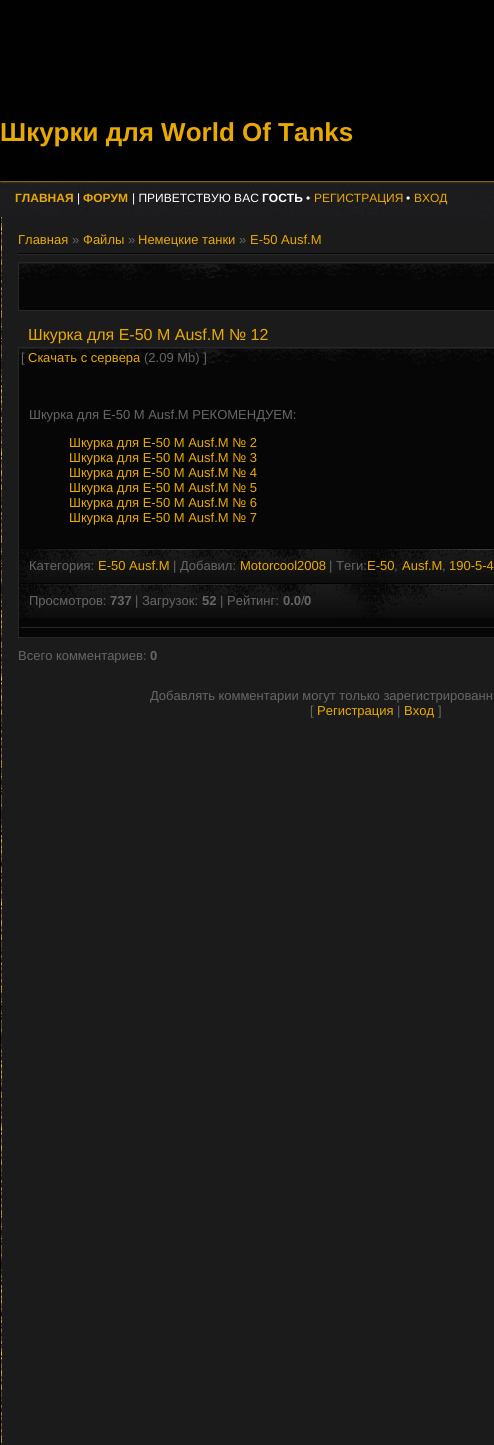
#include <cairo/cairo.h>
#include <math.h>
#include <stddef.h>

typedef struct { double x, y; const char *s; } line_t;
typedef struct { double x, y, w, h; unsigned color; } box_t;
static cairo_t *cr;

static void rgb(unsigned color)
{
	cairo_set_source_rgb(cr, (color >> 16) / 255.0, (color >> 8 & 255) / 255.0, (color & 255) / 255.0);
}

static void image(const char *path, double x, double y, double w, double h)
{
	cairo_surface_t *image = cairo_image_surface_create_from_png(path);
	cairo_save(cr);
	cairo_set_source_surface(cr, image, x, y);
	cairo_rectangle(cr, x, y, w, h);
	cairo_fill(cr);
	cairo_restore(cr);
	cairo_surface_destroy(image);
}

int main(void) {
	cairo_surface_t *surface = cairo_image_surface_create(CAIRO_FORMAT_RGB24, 494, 1445);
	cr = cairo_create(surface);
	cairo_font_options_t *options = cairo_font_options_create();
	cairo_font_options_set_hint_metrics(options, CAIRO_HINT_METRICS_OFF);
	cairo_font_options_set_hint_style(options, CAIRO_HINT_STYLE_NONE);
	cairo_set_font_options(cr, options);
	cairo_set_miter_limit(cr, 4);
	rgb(0x010101);
	cairo_paint(cr);
	image("img/1.png", 0, 181, 494, 36);
	rgb(0x1b1b1b);
	cairo_rectangle(cr, 2, 217, 492, 1228);
	cairo_fill(cr);
	image("img/2.png", 0, 217, 2, 1228);
	{
		static const box_t items[] = {
			{18, 253, 476, 1, 0x070707},
			{18, 254, 476, 1, 0x272727},
			{19, 280, 475, 30, 0x060606},
		};
		for (size_t i = 0; i < sizeof items / sizeof *items; i++) {
			rgb(items[i].color);
			cairo_rectangle(cr, items[i].x, items[i].y, items[i].w, items[i].h);
			cairo_fill(cr);
		}
	}
	image("img/3.png", 19, 263, 475, 17);
	cairo_rectangle(cr, 18.5, 262.5, 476, 48);
	rgb(0x272727);
	cairo_set_line_width(cr, 1);
	cairo_stroke(cr);
	rgb(0x060606);
	cairo_rectangle(cr, 19, 365, 475, 272);
	cairo_fill(cr);
	image("img/3.png", 19, 348, 475, 17);
	cairo_rectangle(cr, 18.5, 347.5, 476, 290);
	rgb(0x272727);
	cairo_stroke(cr);
	image("img/4.png", 19, 548, 475, 35);
	image("img/4.png", 19, 583, 475, 35);
	cairo_rectangle(cr, 21, 627, 473, 1);
	cairo_fill(cr);
	cairo_select_font_face(cr, "Liberation Sans", CAIRO_FONT_SLANT_NORMAL, CAIRO_FONT_WEIGHT_BOLD);
	cairo_set_font_size(cr, 26);
	rgb(0xe8a902);
	cairo_move_to(cr, 0, 141);
	cairo_show_text(cr, "Шкурки для World Of Tanks");
	cairo_set_font_size(cr, 12);
	cairo_move_to(cr, 15, 202);
	cairo_show_text(cr, "ГЛАВНАЯ");
	cairo_select_font_face(cr, "Liberation Sans", CAIRO_FONT_SLANT_NORMAL, CAIRO_FONT_WEIGHT_NORMAL);
	rgb(0xffffff);
	cairo_move_to(cr, 77, 202);
	cairo_show_text(cr, "|");
	cairo_select_font_face(cr, "Liberation Sans", CAIRO_FONT_SLANT_NORMAL, CAIRO_FONT_WEIGHT_BOLD);
	rgb(0xe8a902);
	cairo_move_to(cr, 83, 202);
	cairo_show_text(cr, "ФОРУМ");
	cairo_select_font_face(cr, "Liberation Sans", CAIRO_FONT_SLANT_NORMAL, CAIRO_FONT_WEIGHT_NORMAL);
	rgb(0xffffff);
	cairo_move_to(cr, 132, 202);
	cairo_show_text(cr, "| ПРИВЕТСТВУЮ ВАС");
	cairo_select_font_face(cr, "Liberation Sans", CAIRO_FONT_SLANT_NORMAL, CAIRO_FONT_WEIGHT_BOLD);
	cairo_move_to(cr, 262, 202);
	cairo_show_text(cr, "ГОСТЬ");
	cairo_select_font_face(cr, "Liberation Sans", CAIRO_FONT_SLANT_NORMAL, CAIRO_FONT_WEIGHT_NORMAL);
	cairo_move_to(cr, 306, 202);
	cairo_show_text(cr, "•");
	rgb(0xe8a902);
	cairo_move_to(cr, 314, 202);
	cairo_show_text(cr, "РЕГИСТРАЦИЯ");
	rgb(0xffffff);
	cairo_move_to(cr, 406, 202);
	cairo_show_text(cr, "•");
	rgb(0xe8a902);
	cairo_move_to(cr, 414, 202);
	cairo_show_text(cr, "ВХОД");
	cairo_set_font_size(cr, 13);
	cairo_move_to(cr, 18, 244);
	cairo_show_text(cr, "Главная");
	rgb(0x666666);
	cairo_move_to(cr, 72, 244);
	cairo_show_text(cr, "»");
	rgb(0xe8a902);
	cairo_move_to(cr, 83, 244);
	cairo_show_text(cr, "Файлы");
	rgb(0x666666);
	cairo_move_to(cr, 128, 244);
	cairo_show_text(cr, "»");
	rgb(0xe8a902);
	cairo_move_to(cr, 138, 244);
	cairo_show_text(cr, "Немецкие танки");
	rgb(0x666666);
	cairo_move_to(cr, 239, 244);
	cairo_show_text(cr, "»");
	rgb(0xe8a902);
	cairo_move_to(cr, 250, 244);
	cairo_show_text(cr, "Е-50 Ausf.M");
	cairo_set_font_size(cr, 16);
	cairo_move_to(cr, 28, 340);
	cairo_show_text(cr, "Шкурка для E-50 M Ausf.M № 12");
	cairo_set_font_size(cr, 13);
	rgb(0x666666);
	cairo_move_to(cr, 21, 362);
	cairo_show_text(cr, "[");
	rgb(0xe8a902);
	cairo_move_to(cr, 28, 362);
	cairo_show_text(cr, "Скачать с сервера");
	rgb(0x666666);
	cairo_move_to(cr, 144, 362);
	cairo_show_text(cr, "(2.09 Mb) ]");
	cairo_move_to(cr, 29, 419);
	cairo_show_text(cr, "Шкурка для E-50 M Ausf.M РЕКОМЕНДУЕМ:");
	rgb(0xe8a902);
	{
		static const line_t items[] = {
			{69, 447, "Шкурка для E-50 M Ausf.M № 2"},
			{69, 462, "Шкурка для E-50 M Ausf.M № 3"},
			{69, 477, "Шкурка для E-50 M Ausf.M № 4"},
			{69, 492, "Шкурка для E-50 M Ausf.M № 5"},
			{69, 507, "Шкурка для E-50 M Ausf.M № 6"},
			{69, 522, "Шкурка для E-50 M Ausf.M № 7"},
		};
		for (size_t i = 0; i < sizeof items / sizeof *items; i++) {
			cairo_move_to(cr, items[i].x, items[i].y);
			cairo_show_text(cr, items[i].s);
		}
	}
	rgb(0x666666);
	cairo_move_to(cr, 29, 570);
	cairo_show_text(cr, "Категория:");
	rgb(0xe8a902);
	cairo_move_to(cr, 98, 570);
	cairo_show_text(cr, "Е-50 Ausf.M");
	rgb(0x666666);
	cairo_move_to(cr, 173, 570);
	cairo_show_text(cr, "| Добавил:");
	rgb(0xe8a902);
	cairo_move_to(cr, 240, 570);
	cairo_show_text(cr, "Motorcool2008");
	rgb(0x666666);
	cairo_move_to(cr, 329, 570);
	cairo_show_text(cr, "| Теги:");
	rgb(0xe8a902);
	cairo_move_to(cr, 367, 570);
	cairo_show_text(cr, "E-50");
	rgb(0x666666);
	cairo_move_to(cr, 394, 570);
	cairo_show_text(cr, ",");
	rgb(0xe8a902);
	cairo_move_to(cr, 402, 570);
	cairo_show_text(cr, "Ausf.M");
	rgb(0x666666);
	cairo_move_to(cr, 442, 570);
	cairo_show_text(cr, ",");
	rgb(0xe8a902);
	cairo_move_to(cr, 449, 570);
	cairo_show_text(cr, "190-5-4");
	rgb(0x666666);
	cairo_move_to(cr, 29, 605);
	cairo_show_text(cr, "Просмотров:");
	cairo_select_font_face(cr, "Liberation Sans", CAIRO_FONT_SLANT_NORMAL, CAIRO_FONT_WEIGHT_BOLD);
	cairo_move_to(cr, 110, 605);
	cairo_show_text(cr, "737");
	cairo_select_font_face(cr, "Liberation Sans", CAIRO_FONT_SLANT_NORMAL, CAIRO_FONT_WEIGHT_NORMAL);
	cairo_move_to(cr, 135, 605);
	cairo_show_text(cr, "| Загрузок:");
	cairo_select_font_face(cr, "Liberation Sans", CAIRO_FONT_SLANT_NORMAL, CAIRO_FONT_WEIGHT_BOLD);
	cairo_move_to(cr, 202, 605);
	cairo_show_text(cr, "52");
	cairo_select_font_face(cr, "Liberation Sans", CAIRO_FONT_SLANT_NORMAL, CAIRO_FONT_WEIGHT_NORMAL);
	cairo_move_to(cr, 220, 605);
	cairo_show_text(cr, "| Рейтинг:");
	cairo_select_font_face(cr, "Liberation Sans", CAIRO_FONT_SLANT_NORMAL, CAIRO_FONT_WEIGHT_BOLD);
	cairo_move_to(cr, 283, 605);
	cairo_show_text(cr, "0.0");
	cairo_select_font_face(cr, "Liberation Sans", CAIRO_FONT_SLANT_NORMAL, CAIRO_FONT_WEIGHT_NORMAL);
	cairo_move_to(cr, 301, 605);
	cairo_show_text(cr, "/");
	cairo_select_font_face(cr, "Liberation Sans", CAIRO_FONT_SLANT_NORMAL, CAIRO_FONT_WEIGHT_BOLD);
	cairo_move_to(cr, 304, 605);
	cairo_show_text(cr, "0");
	cairo_select_font_face(cr, "Liberation Sans", CAIRO_FONT_SLANT_NORMAL, CAIRO_FONT_WEIGHT_NORMAL);
	cairo_move_to(cr, 18, 660);
	cairo_show_text(cr, "Всего комментариев:");
	cairo_select_font_face(cr, "Liberation Sans", CAIRO_FONT_SLANT_NORMAL, CAIRO_FONT_WEIGHT_BOLD);
	cairo_move_to(cr, 150, 660);
	cairo_show_text(cr, "0");
	cairo_select_font_face(cr, "Liberation Sans", CAIRO_FONT_SLANT_NORMAL, CAIRO_FONT_WEIGHT_NORMAL);
	cairo_move_to(cr, 150, 700);
	cairo_show_text(cr, "Добавлять комментарии могут только зарегистрированн");
	cairo_move_to(cr, 310, 715);
	cairo_show_text(cr, "[");
	rgb(0xe8a902);
	cairo_move_to(cr, 317, 715);
	cairo_show_text(cr, "Регистрация");
	rgb(0x666666);
	cairo_move_to(cr, 397, 715);
	cairo_show_text(cr, "|");
	rgb(0xe8a902);
	cairo_move_to(cr, 404, 715);
	cairo_show_text(cr, "Вход");
	rgb(0x666666);
	cairo_move_to(cr, 438, 715);
	cairo_show_text(cr, "]");
	cairo_surface_write_to_png(surface, "page.png");
	cairo_font_options_destroy(options);
	cairo_destroy(cr);
	cairo_surface_destroy(surface);
	return 0;
}
